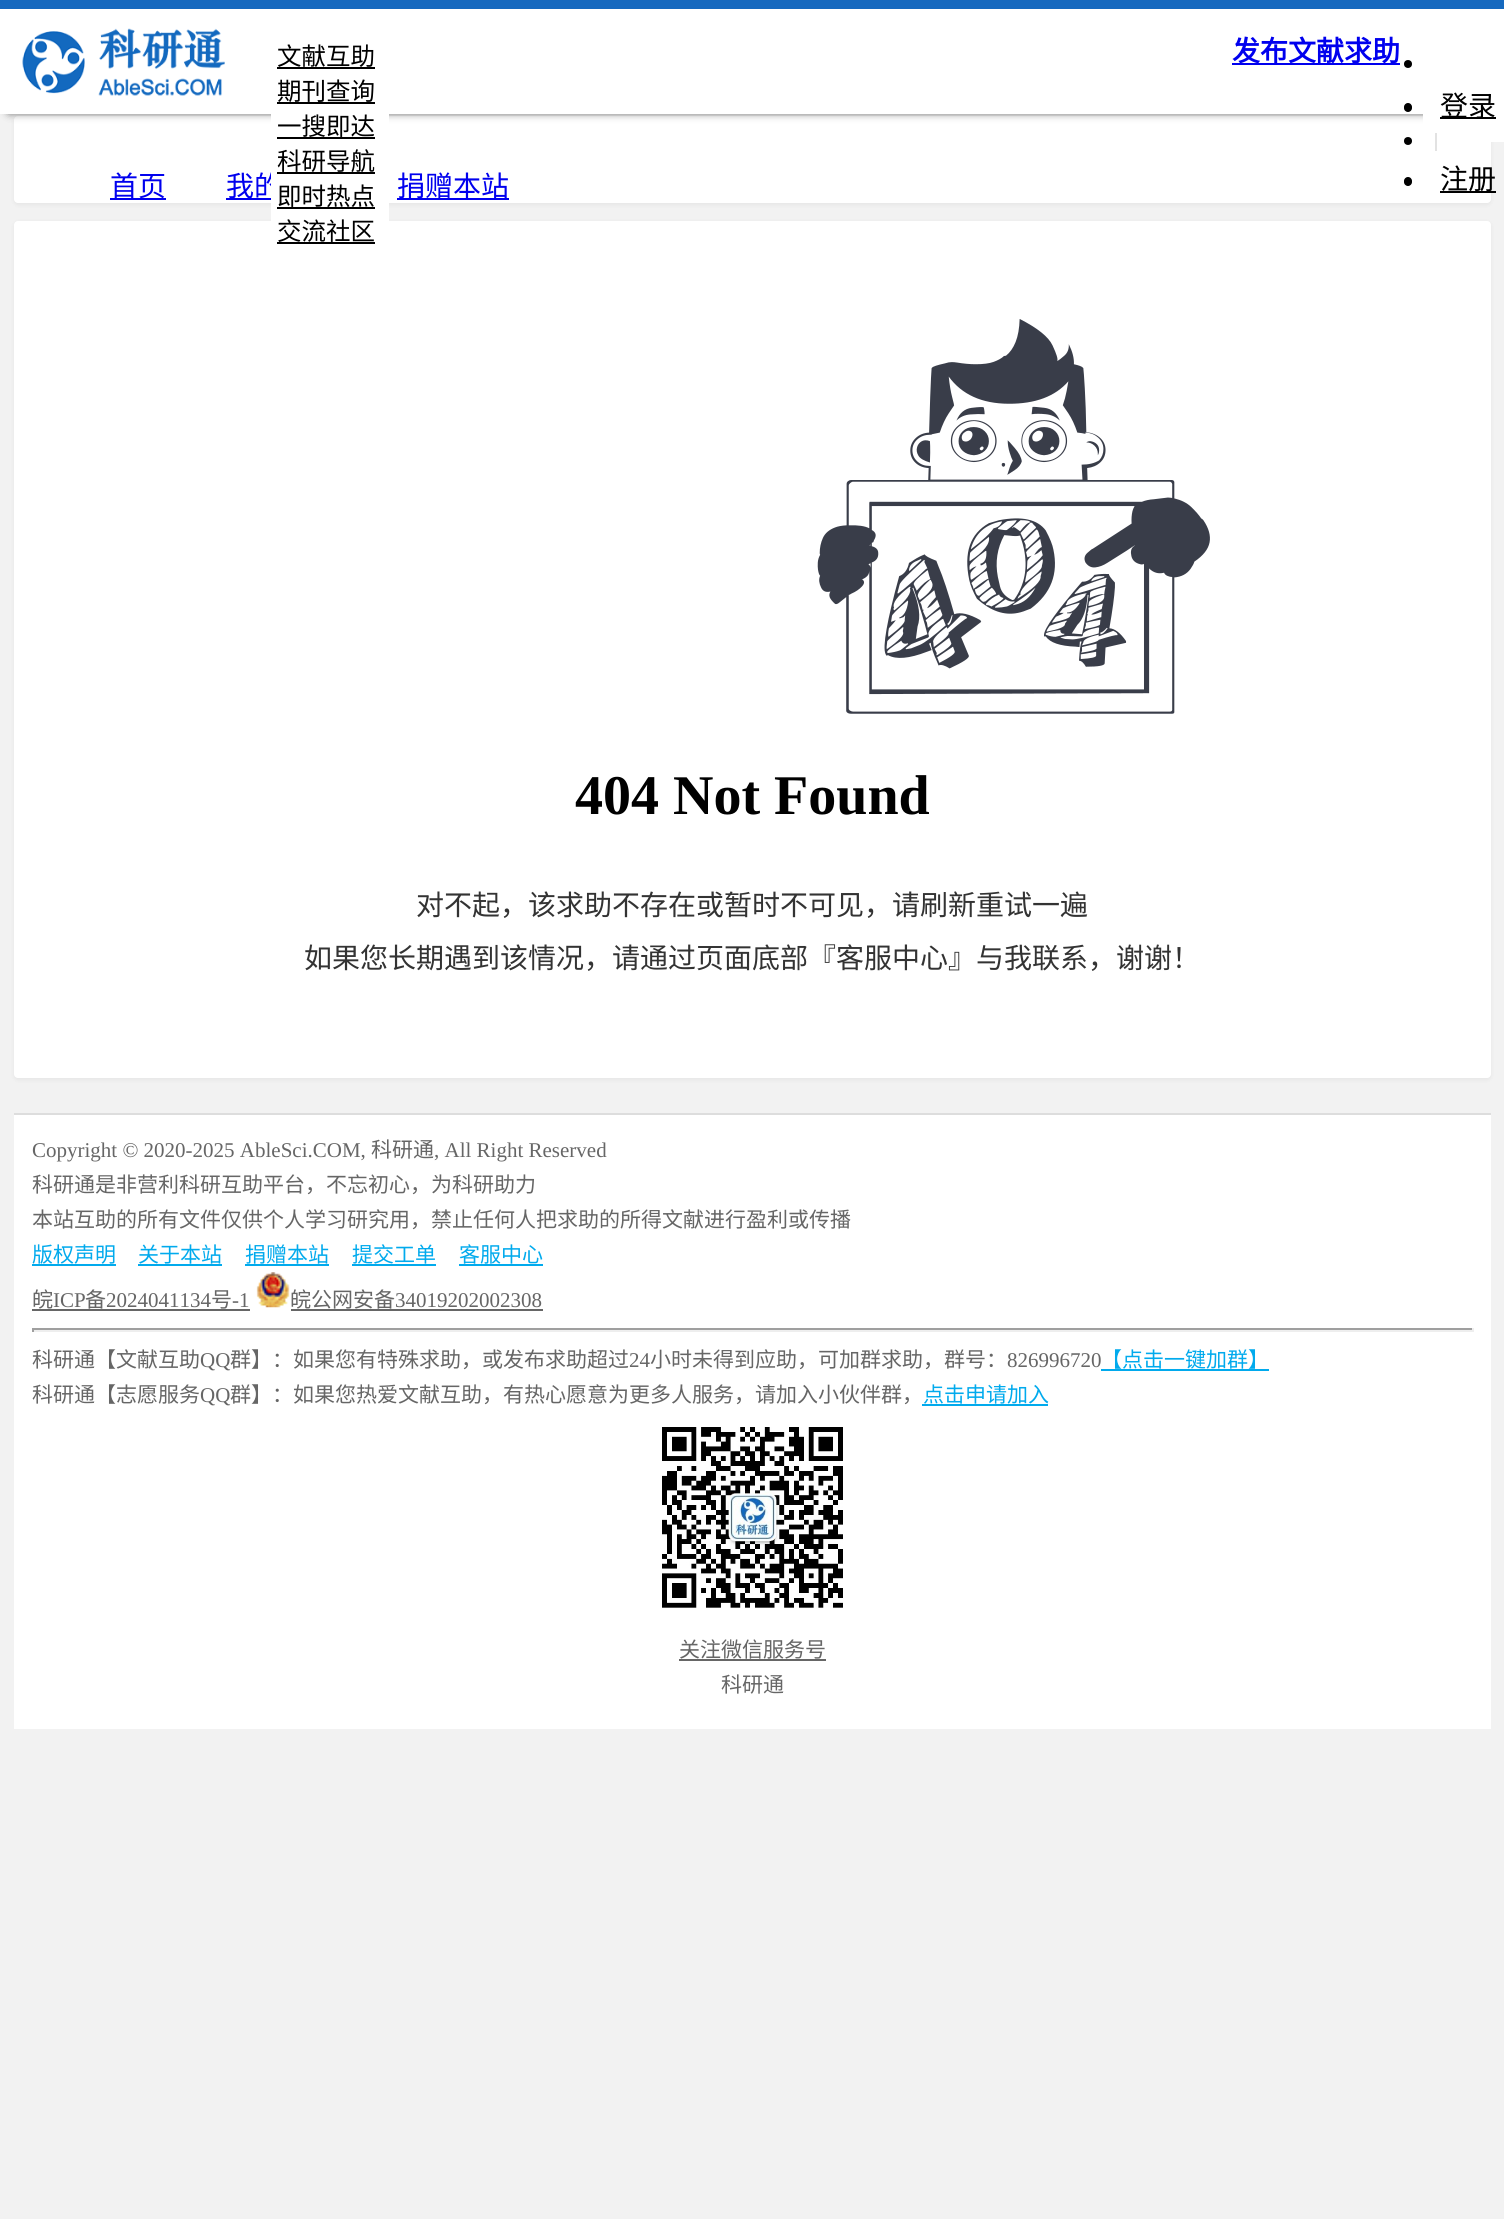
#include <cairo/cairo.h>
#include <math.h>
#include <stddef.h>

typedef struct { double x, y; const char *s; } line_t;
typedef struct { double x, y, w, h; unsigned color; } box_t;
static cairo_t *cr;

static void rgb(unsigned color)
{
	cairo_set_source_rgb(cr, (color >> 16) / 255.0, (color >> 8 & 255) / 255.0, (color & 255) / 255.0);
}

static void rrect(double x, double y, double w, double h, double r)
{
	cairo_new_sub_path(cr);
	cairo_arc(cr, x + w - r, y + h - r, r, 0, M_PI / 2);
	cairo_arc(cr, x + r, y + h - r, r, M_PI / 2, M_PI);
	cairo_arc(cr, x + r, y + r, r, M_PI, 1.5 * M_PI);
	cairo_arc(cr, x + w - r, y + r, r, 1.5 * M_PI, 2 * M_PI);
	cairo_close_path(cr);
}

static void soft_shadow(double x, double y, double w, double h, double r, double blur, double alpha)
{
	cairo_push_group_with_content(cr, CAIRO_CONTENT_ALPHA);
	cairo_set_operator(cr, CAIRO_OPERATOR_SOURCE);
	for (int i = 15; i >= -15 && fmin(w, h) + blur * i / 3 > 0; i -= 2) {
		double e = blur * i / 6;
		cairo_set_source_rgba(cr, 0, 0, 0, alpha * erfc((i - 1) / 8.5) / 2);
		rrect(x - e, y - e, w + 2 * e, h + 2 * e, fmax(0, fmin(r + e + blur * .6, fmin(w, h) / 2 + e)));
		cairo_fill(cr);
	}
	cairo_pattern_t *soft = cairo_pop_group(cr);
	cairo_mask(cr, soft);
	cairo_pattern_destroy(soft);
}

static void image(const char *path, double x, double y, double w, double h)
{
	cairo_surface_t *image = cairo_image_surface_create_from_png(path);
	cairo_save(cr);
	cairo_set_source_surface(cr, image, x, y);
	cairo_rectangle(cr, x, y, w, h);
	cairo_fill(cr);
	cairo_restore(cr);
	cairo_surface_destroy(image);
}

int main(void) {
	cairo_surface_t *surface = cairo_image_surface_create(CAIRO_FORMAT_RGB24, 1504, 2219);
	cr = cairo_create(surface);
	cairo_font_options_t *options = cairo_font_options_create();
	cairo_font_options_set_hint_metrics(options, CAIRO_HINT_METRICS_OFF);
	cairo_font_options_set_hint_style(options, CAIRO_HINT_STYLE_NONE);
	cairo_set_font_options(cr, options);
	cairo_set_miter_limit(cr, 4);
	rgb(0xf2f2f2);
	cairo_paint(cr);
	rgb(0x000000);
	soft_shadow(14, 117, 1477, 88, 4, 2, 0.05);
	rgb(0xffffff);
	rrect(14, 116, 1477, 87, 4);
	cairo_fill(cr);
	rgb(0x333333);
	soft_shadow(9, 16, 1487, 96, 0, 4.5, 1);
	rgb(0xffffff);
	cairo_rectangle(cr, 0, 9, 1504, 105);
	cairo_fill(cr);
	rgb(0x1669bf);
	cairo_rectangle(cr, 0, 0, 1504, 9);
	cairo_fill(cr);
	image("img/1.png", 22, 28, 203, 68);
	rgb(0x000000);
	cairo_rectangle(cr, 277, 67, 98, 2);
	cairo_fill(cr);
	cairo_rectangle(cr, 277, 102, 98, 2);
	cairo_fill(cr);
	rgb(0x000000);
	soft_shadow(14, 222, 1477, 858, 4, 2, 0.05);
	rgb(0xffffff);
	rrect(14, 221, 1477, 857, 4);
	cairo_fill(cr);
	{
		static const box_t items[] = {
			{277, 242, 98, 2, 0x000000},
			{1232, 63, 168, 2, 0x0000ee},
			{1423, 114, 81, 28, 0xffffff},
		};
		for (size_t i = 0; i < sizeof items / sizeof *items; i++) {
			rgb(items[i].color);
			cairo_rectangle(cr, items[i].x, items[i].y, items[i].w, items[i].h);
			cairo_fill(cr);
		}
	}
	rgb(0x000000);
	cairo_arc(cr, 1408, 64, 4, 0, 2 * M_PI);
	cairo_fill(cr);
	rrect(1404, 103, 8, 9, 4);
	cairo_fill(cr);
	cairo_rectangle(cr, 1440, 117, 56, 2);
	cairo_fill(cr);
	cairo_arc(cr, 1408, 141, 4, 0, 2 * M_PI);
	cairo_fill(cr);
	rgb(0xe2e2e2);
	cairo_rectangle(cr, 1435, 133, 2, 18);
	cairo_fill(cr);
	rgb(0x000000);
	rrect(1404, 177, 8, 9, 4);
	cairo_fill(cr);
	{
		static const box_t items[] = {
			{1440, 191, 56, 2, 0x000000},
			{110, 198, 56, 2, 0x0000ee},
			{226, 198, 45, 2, 0x0000ee},
			{397, 198, 112, 2, 0x0000ee},
		};
		for (size_t i = 0; i < sizeof items / sizeof *items; i++) {
			rgb(items[i].color);
			cairo_rectangle(cr, items[i].x, items[i].y, items[i].w, items[i].h);
			cairo_fill(cr);
		}
	}
	image("img/2.png", 817, 319, 393, 395);
	{
		static const box_t items[] = {
			{14, 1115, 1477, 614, 0xffffff},
			{14, 1113, 1477, 2, 0xdddddd},
			{32, 1264, 84, 2, 0x01aaed},
			{138, 1264, 84, 2, 0x01aaed},
			{245, 1264, 84, 2, 0x01aaed},
			{352, 1264, 84, 2, 0x01aaed},
			{459, 1264, 84, 2, 0x01aaed},
			{32, 1309, 218, 2, 0x666666},
		};
		for (size_t i = 0; i < sizeof items / sizeof *items; i++) {
			rgb(items[i].color);
			cairo_rectangle(cr, items[i].x, items[i].y, items[i].w, items[i].h);
			cairo_fill(cr);
		}
	}
	image("img/3.png", 256, 1272, 34, 36);
	{
		static const box_t items[] = {
			{291, 1309, 252, 2, 0x666666},
			{32, 1328, 1442, 2, 0x9f9f9f},
			{1472, 1328, 2, 4, 0xeeeeee},
			{32, 1330, 1442, 2, 0xeeeeee},
			{32, 1328, 2, 4, 0x9f9f9f},
			{1101, 1369, 168, 2, 0x01aaed},
			{922, 1404, 126, 2, 0x01aaed},
		};
		for (size_t i = 0; i < sizeof items / sizeof *items; i++) {
			rgb(items[i].color);
			cairo_rectangle(cr, items[i].x, items[i].y, items[i].w, items[i].h);
			cairo_fill(cr);
		}
	}
	image("img/4.png", 662, 1427, 181, 181);
	rgb(0x666666);
	cairo_rectangle(cr, 679, 1659, 147, 2);
	cairo_fill(cr);
	cairo_select_font_face(cr, "Noto Sans CJK SC", CAIRO_FONT_SLANT_NORMAL, CAIRO_FONT_WEIGHT_NORMAL);
	cairo_set_font_size(cr, 24.5);
	rgb(0x000000);
	cairo_move_to(cr, 277, 65);
	cairo_show_text(cr, "文献互助");
	cairo_move_to(cr, 277, 100);
	cairo_show_text(cr, "期刊查询");
	cairo_select_font_face(cr, "Noto Sans CJK SC", CAIRO_FONT_SLANT_NORMAL, CAIRO_FONT_WEIGHT_BOLD);
	cairo_set_font_size(cr, 28);
	rgb(0x0000ee);
	cairo_move_to(cr, 1232, 61);
	cairo_show_text(cr, "发布文献求助");
	cairo_select_font_face(cr, "Noto Sans CJK SC", CAIRO_FONT_SLANT_NORMAL, CAIRO_FONT_WEIGHT_NORMAL);
	rgb(0x000000);
	cairo_move_to(cr, 1440, 116);
	cairo_show_text(cr, "登录");
	cairo_move_to(cr, 1440, 189);
	cairo_show_text(cr, "注册");
	rgb(0x0000ee);
	cairo_move_to(cr, 110, 196);
	cairo_show_text(cr, "首页");
	cairo_move_to(cr, 226, 196);
	cairo_show_text(cr, "我的");
	rgb(0xffffff);
	cairo_rectangle(cr, 271, 114, 118, 107);
	cairo_fill(cr);
	cairo_set_font_size(cr, 24.5);
	rgb(0x000000);
	cairo_move_to(cr, 277, 240);
	cairo_show_text(cr, "交流社区");
	cairo_rectangle(cr, 277, 207, 98, 2);
	cairo_fill(cr);
	cairo_move_to(cr, 277, 205);
	cairo_show_text(cr, "即时热点");
	cairo_rectangle(cr, 277, 172, 98, 2);
	cairo_fill(cr);
	cairo_move_to(cr, 277, 170);
	cairo_show_text(cr, "科研导航");
	cairo_move_to(cr, 277, 135);
	cairo_show_text(cr, "一搜即达");
	cairo_rectangle(cr, 277, 137, 98, 2);
	cairo_fill(cr);
	cairo_set_font_size(cr, 28);
	rgb(0x0000ee);
	cairo_move_to(cr, 397, 196);
	cairo_show_text(cr, "捐赠本站");
	cairo_select_font_face(cr, "Liberation Serif", CAIRO_FONT_SLANT_NORMAL, CAIRO_FONT_WEIGHT_BOLD);
	cairo_set_font_size(cr, 56);
	rgb(0x000000);
	cairo_move_to(cr, 575, 814);
	cairo_show_text(cr, "404 Not Found");
	cairo_select_font_face(cr, "Noto Sans CJK SC", CAIRO_FONT_SLANT_NORMAL, CAIRO_FONT_WEIGHT_NORMAL);
	cairo_set_font_size(cr, 28);
	rgb(0x333333);
	cairo_move_to(cr, 416, 915);
	cairo_show_text(cr, "对不起，该求助不存在或暂时不可见，请刷新重试一遍");
	cairo_move_to(cr, 304, 968);
	cairo_show_text(cr, "如果您长期遇到该情况，请通过页面底部『客服中心』与我联系，谢谢！");
	cairo_select_font_face(cr, "Liberation Serif", CAIRO_FONT_SLANT_NORMAL, CAIRO_FONT_WEIGHT_NORMAL);
	cairo_set_font_size(cr, 21);
	rgb(0x666666);
	cairo_move_to(cr, 32, 1157);
	cairo_show_text(cr, "Copyright © 2020-2025 AbleSci.COM,");
	cairo_select_font_face(cr, "Noto Sans CJK SC", CAIRO_FONT_SLANT_NORMAL, CAIRO_FONT_WEIGHT_NORMAL);
	cairo_move_to(cr, 371, 1157);
	cairo_show_text(cr, "科研通");
	cairo_select_font_face(cr, "Liberation Serif", CAIRO_FONT_SLANT_NORMAL, CAIRO_FONT_WEIGHT_NORMAL);
	cairo_move_to(cr, 434, 1157);
	cairo_show_text(cr, ", All Right Reserved");
	cairo_select_font_face(cr, "Noto Sans CJK SC", CAIRO_FONT_SLANT_NORMAL, CAIRO_FONT_WEIGHT_NORMAL);
	cairo_move_to(cr, 32, 1192);
	cairo_show_text(cr, "科研通是非营利科研互助平台，不忘初心，为科研助力");
	cairo_move_to(cr, 32, 1227);
	cairo_show_text(cr, "本站互助的所有文件仅供个人学习研究用，禁止任何人把求助的所得文献进行盈利或传播");
	rgb(0x01aaed);
	{
		static const line_t items[] = {
			{32, 1262, "版权声明"},
			{138, 1262, "关于本站"},
			{245, 1262, "捐赠本站"},
			{352, 1262, "提交工单"},
			{459, 1262, "客服中心"},
		};
		for (size_t i = 0; i < sizeof items / sizeof *items; i++) {
			cairo_move_to(cr, items[i].x, items[i].y);
			cairo_show_text(cr, items[i].s);
		}
	}
	rgb(0x666666);
	cairo_move_to(cr, 32, 1307);
	cairo_show_text(cr, "皖");
	cairo_select_font_face(cr, "Liberation Serif", CAIRO_FONT_SLANT_NORMAL, CAIRO_FONT_WEIGHT_NORMAL);
	cairo_move_to(cr, 53, 1307);
	cairo_show_text(cr, "ICP");
	cairo_select_font_face(cr, "Noto Sans CJK SC", CAIRO_FONT_SLANT_NORMAL, CAIRO_FONT_WEIGHT_NORMAL);
	cairo_move_to(cr, 85, 1307);
	cairo_show_text(cr, "备");
	cairo_select_font_face(cr, "Liberation Serif", CAIRO_FONT_SLANT_NORMAL, CAIRO_FONT_WEIGHT_NORMAL);
	cairo_move_to(cr, 106, 1307);
	cairo_show_text(cr, "2024041134");
	cairo_select_font_face(cr, "Noto Sans CJK SC", CAIRO_FONT_SLANT_NORMAL, CAIRO_FONT_WEIGHT_NORMAL);
	cairo_move_to(cr, 211, 1307);
	cairo_show_text(cr, "号");
	cairo_select_font_face(cr, "Liberation Serif", CAIRO_FONT_SLANT_NORMAL, CAIRO_FONT_WEIGHT_NORMAL);
	cairo_move_to(cr, 232, 1307);
	cairo_show_text(cr, "-1");
	cairo_select_font_face(cr, "Noto Sans CJK SC", CAIRO_FONT_SLANT_NORMAL, CAIRO_FONT_WEIGHT_NORMAL);
	cairo_move_to(cr, 290, 1307);
	cairo_show_text(cr, "皖公网安备");
	cairo_select_font_face(cr, "Liberation Serif", CAIRO_FONT_SLANT_NORMAL, CAIRO_FONT_WEIGHT_NORMAL);
	cairo_move_to(cr, 395, 1307);
	cairo_show_text(cr, "34019202002308");
	cairo_select_font_face(cr, "Noto Sans CJK SC", CAIRO_FONT_SLANT_NORMAL, CAIRO_FONT_WEIGHT_NORMAL);
	cairo_move_to(cr, 32, 1367);
	cairo_show_text(cr, "科研通【文献互助");
	cairo_select_font_face(cr, "Liberation Serif", CAIRO_FONT_SLANT_NORMAL, CAIRO_FONT_WEIGHT_NORMAL);
	cairo_move_to(cr, 200, 1367);
	cairo_show_text(cr, "QQ");
	cairo_select_font_face(cr, "Noto Sans CJK SC", CAIRO_FONT_SLANT_NORMAL, CAIRO_FONT_WEIGHT_NORMAL);
	cairo_move_to(cr, 230, 1367);
	cairo_show_text(cr, "群】：如果您有特殊求助，或发布求助超过");
	cairo_select_font_face(cr, "Liberation Serif", CAIRO_FONT_SLANT_NORMAL, CAIRO_FONT_WEIGHT_NORMAL);
	cairo_move_to(cr, 629, 1367);
	cairo_show_text(cr, "24");
	cairo_select_font_face(cr, "Noto Sans CJK SC", CAIRO_FONT_SLANT_NORMAL, CAIRO_FONT_WEIGHT_NORMAL);
	cairo_move_to(cr, 650, 1367);
	cairo_show_text(cr, "小时未得到应助，可加群求助，群号：");
	cairo_select_font_face(cr, "Liberation Serif", CAIRO_FONT_SLANT_NORMAL, CAIRO_FONT_WEIGHT_NORMAL);
	cairo_move_to(cr, 1007, 1367);
	cairo_show_text(cr, "826996720");
	cairo_select_font_face(cr, "Noto Sans CJK SC", CAIRO_FONT_SLANT_NORMAL, CAIRO_FONT_WEIGHT_NORMAL);
	rgb(0x01aaed);
	cairo_move_to(cr, 1101, 1367);
	cairo_show_text(cr, "【点击一键加群】");
	rgb(0x666666);
	cairo_move_to(cr, 32, 1402);
	cairo_show_text(cr, "科研通【志愿服务");
	cairo_select_font_face(cr, "Liberation Serif", CAIRO_FONT_SLANT_NORMAL, CAIRO_FONT_WEIGHT_NORMAL);
	cairo_move_to(cr, 200, 1402);
	cairo_show_text(cr, "QQ");
	cairo_select_font_face(cr, "Noto Sans CJK SC", CAIRO_FONT_SLANT_NORMAL, CAIRO_FONT_WEIGHT_NORMAL);
	cairo_move_to(cr, 230, 1402);
	cairo_show_text(cr, "群】：如果您热爱文献互助，有热心愿意为更多人服务，请加入小伙伴群，");
	rgb(0x01aaed);
	cairo_move_to(cr, 923, 1402);
	cairo_show_text(cr, "点击申请加入");
	rgb(0x666666);
	cairo_move_to(cr, 679, 1657);
	cairo_show_text(cr, "关注微信服务号");
	cairo_move_to(cr, 721, 1692);
	cairo_show_text(cr, "科研通");
	cairo_surface_write_to_png(surface, "page.png");
	cairo_font_options_destroy(options);
	cairo_destroy(cr);
	cairo_surface_destroy(surface);
	return 0;
}
